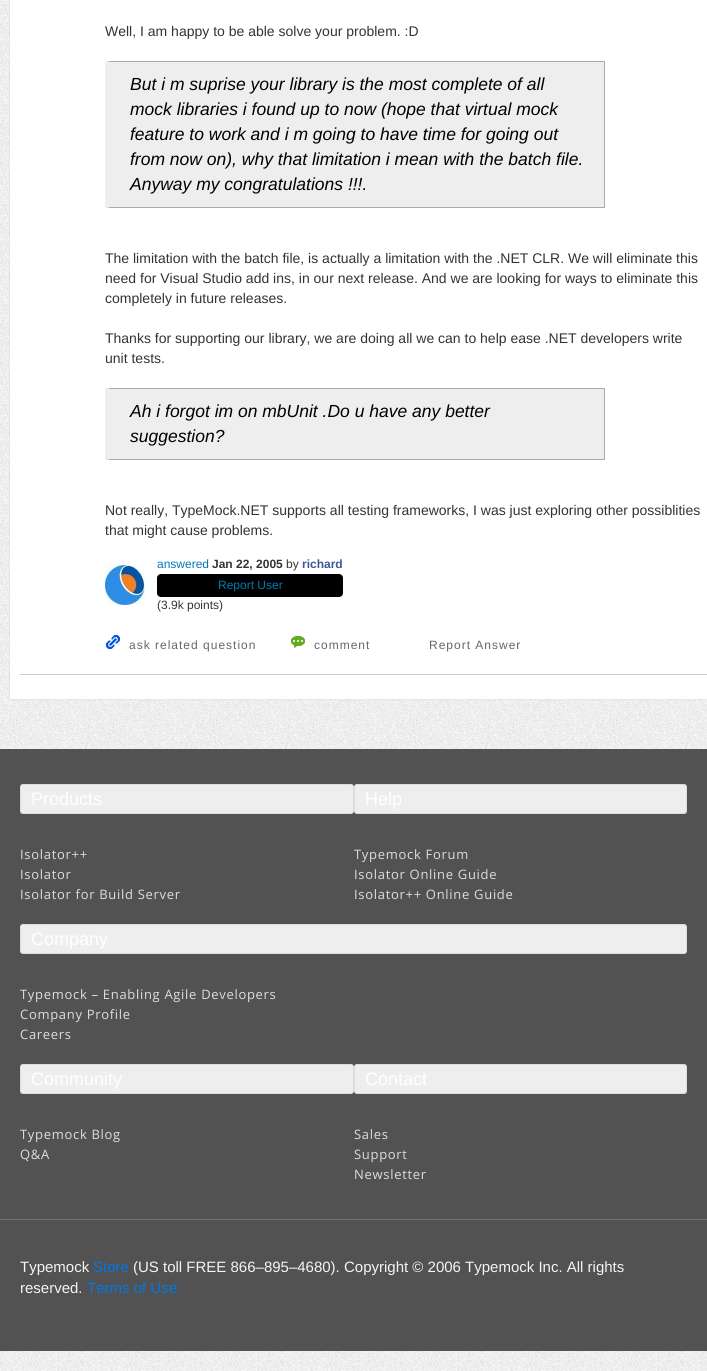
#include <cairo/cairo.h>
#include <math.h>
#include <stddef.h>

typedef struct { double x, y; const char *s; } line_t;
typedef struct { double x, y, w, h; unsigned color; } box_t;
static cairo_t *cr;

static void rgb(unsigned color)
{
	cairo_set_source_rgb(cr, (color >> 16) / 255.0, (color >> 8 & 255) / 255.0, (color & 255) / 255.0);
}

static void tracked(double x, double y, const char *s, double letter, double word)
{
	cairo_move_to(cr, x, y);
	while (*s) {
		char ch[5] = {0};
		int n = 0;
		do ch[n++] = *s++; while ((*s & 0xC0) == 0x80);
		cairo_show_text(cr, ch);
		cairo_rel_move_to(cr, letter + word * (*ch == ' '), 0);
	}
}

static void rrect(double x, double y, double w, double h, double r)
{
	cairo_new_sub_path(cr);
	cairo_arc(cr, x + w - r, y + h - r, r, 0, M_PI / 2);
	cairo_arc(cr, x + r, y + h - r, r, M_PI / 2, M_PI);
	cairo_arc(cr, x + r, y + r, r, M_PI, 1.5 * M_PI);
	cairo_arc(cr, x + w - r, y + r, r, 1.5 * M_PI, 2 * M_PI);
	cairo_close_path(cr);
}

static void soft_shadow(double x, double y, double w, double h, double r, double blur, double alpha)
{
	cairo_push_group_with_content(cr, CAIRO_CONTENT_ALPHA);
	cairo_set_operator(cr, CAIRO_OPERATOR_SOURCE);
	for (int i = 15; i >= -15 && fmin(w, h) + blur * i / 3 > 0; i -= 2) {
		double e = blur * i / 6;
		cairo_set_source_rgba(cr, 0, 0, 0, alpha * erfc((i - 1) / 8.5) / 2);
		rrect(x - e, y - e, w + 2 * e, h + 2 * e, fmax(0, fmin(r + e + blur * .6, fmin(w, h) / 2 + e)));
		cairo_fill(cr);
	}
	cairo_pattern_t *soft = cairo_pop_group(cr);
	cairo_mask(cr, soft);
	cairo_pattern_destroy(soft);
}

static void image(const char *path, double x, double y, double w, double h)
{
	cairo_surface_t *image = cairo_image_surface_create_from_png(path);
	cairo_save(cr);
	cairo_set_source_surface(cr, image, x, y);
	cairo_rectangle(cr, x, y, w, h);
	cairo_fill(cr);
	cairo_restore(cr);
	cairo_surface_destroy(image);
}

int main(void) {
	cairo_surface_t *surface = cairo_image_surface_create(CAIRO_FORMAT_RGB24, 707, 1371);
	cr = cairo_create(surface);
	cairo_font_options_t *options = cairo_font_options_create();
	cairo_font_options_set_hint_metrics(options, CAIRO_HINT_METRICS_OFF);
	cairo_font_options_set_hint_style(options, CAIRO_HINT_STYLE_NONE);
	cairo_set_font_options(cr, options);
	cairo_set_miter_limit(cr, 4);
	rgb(0xffffff);
	cairo_paint(cr);
	image("img/1.png", 0, 0, 707, 1371);
	rgb(0x000000);
	soft_shadow(10, -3, 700, 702, 0, 1, 0.1);
	{
		static const box_t items[] = {
			{10, 0, 697, 699, 0xffffff},
			{20, 674, 687, 1, 0xcccccc},
			{110, 62, 494, 145, 0xeeeeee},
		};
		for (size_t i = 0; i < sizeof items / sizeof *items; i++) {
			rgb(items[i].color);
			cairo_rectangle(cr, items[i].x, items[i].y, items[i].w, items[i].h);
			cairo_fill(cr);
		}
	}
	rgb(0xaaaaaa);
	cairo_new_path(cr);
	cairo_move_to(cr, 105, 61);
	cairo_line_to(cr, 605, 61);
	cairo_line_to(cr, 604, 62);
	cairo_line_to(cr, 110, 62);
	cairo_close_path(cr);
	cairo_fill(cr);
	cairo_rectangle(cr, 604, 61, 1, 147);
	cairo_fill(cr);
	cairo_new_path(cr);
	cairo_move_to(cr, 605, 208);
	cairo_line_to(cr, 105, 208);
	cairo_line_to(cr, 110, 207);
	cairo_line_to(cr, 604, 207);
	cairo_close_path(cr);
	cairo_fill(cr);
	rgb(0xeeeeee);
	cairo_new_path(cr);
	cairo_move_to(cr, 105, 208);
	cairo_line_to(cr, 105, 61);
	cairo_line_to(cr, 110, 62);
	cairo_line_to(cr, 110, 207);
	cairo_close_path(cr);
	cairo_fill(cr);
	cairo_rectangle(cr, 110, 389, 494, 70);
	cairo_fill(cr);
	rgb(0xaaaaaa);
	cairo_new_path(cr);
	cairo_move_to(cr, 105, 388);
	cairo_line_to(cr, 605, 388);
	cairo_line_to(cr, 604, 389);
	cairo_line_to(cr, 110, 389);
	cairo_close_path(cr);
	cairo_fill(cr);
	cairo_rectangle(cr, 604, 388, 1, 72);
	cairo_fill(cr);
	cairo_new_path(cr);
	cairo_move_to(cr, 605, 460);
	cairo_line_to(cr, 105, 460);
	cairo_line_to(cr, 110, 459);
	cairo_line_to(cr, 604, 459);
	cairo_close_path(cr);
	cairo_fill(cr);
	rgb(0xeeeeee);
	cairo_new_path(cr);
	cairo_move_to(cr, 105, 460);
	cairo_line_to(cr, 105, 388);
	cairo_line_to(cr, 110, 389);
	cairo_line_to(cr, 110, 459);
	cairo_close_path(cr);
	cairo_fill(cr);
	image("img/2.png", 105, 565, 40, 40);
	rgb(0x000000);
	rrect(157, 574, 186, 23, 4);
	cairo_fill(cr);
	image("img/3.png", 105, 635, 15, 15);
	image("img/4.png", 290, 636, 15, 12);
	rgb(0x525252);
	cairo_rectangle(cr, 0, 749, 707, 470);
	cairo_fill(cr);
	rgb(0xeeeeee);
	rrect(20.5, 784.5, 333, 29, 2.5);
	cairo_fill_preserve(cr);
	rgb(0xdddddd);
	cairo_set_line_width(cr, 1);
	cairo_stroke(cr);
	rgb(0xeeeeee);
	rrect(354.5, 784.5, 332, 29, 2.5);
	cairo_fill_preserve(cr);
	rgb(0xdddddd);
	cairo_stroke(cr);
	rgb(0xeeeeee);
	rrect(20.5, 924.5, 666, 29, 2.5);
	cairo_fill_preserve(cr);
	rgb(0xdddddd);
	cairo_stroke(cr);
	rgb(0xeeeeee);
	rrect(20.5, 1064.5, 333, 29, 2.5);
	cairo_fill_preserve(cr);
	rgb(0xdddddd);
	cairo_stroke(cr);
	rgb(0xeeeeee);
	rrect(354.5, 1064.5, 332, 29, 2.5);
	cairo_fill_preserve(cr);
	rgb(0xdddddd);
	cairo_stroke(cr);
	rgb(0x525252);
	cairo_rectangle(cr, 0, 1220, 707, 131);
	cairo_fill(cr);
	rgb(0x737373);
	cairo_rectangle(cr, 0, 1219, 707, 1);
	cairo_fill(cr);
	cairo_select_font_face(cr, "Liberation Sans", CAIRO_FONT_SLANT_NORMAL, CAIRO_FONT_WEIGHT_NORMAL);
	cairo_set_font_size(cr, 14);
	rgb(0x333333);
	cairo_move_to(cr, 105, 36);
	cairo_show_text(cr, "Well, I am happy to be able solve your problem. :D");
	cairo_select_font_face(cr, "Liberation Sans", CAIRO_FONT_SLANT_ITALIC, CAIRO_FONT_WEIGHT_NORMAL);
	cairo_set_font_size(cr, 17.5);
	rgb(0x000000);
	{
		static const line_t items[] = {
			{130, 90, "But i m suprise your library is the most complete of all"},
			{130, 115, "mock libraries i found up to now (hope that virtual mock"},
			{130, 140, "feature to work and i m going to have time for going out"},
			{130, 165, "from now on), why that limitation i mean with the batch file."},
			{130, 190, "Anyway my congratulations !!!."},
		};
		for (size_t i = 0; i < sizeof items / sizeof *items; i++) {
			cairo_move_to(cr, items[i].x, items[i].y);
			cairo_show_text(cr, items[i].s);
		}
	}
	cairo_select_font_face(cr, "Liberation Sans", CAIRO_FONT_SLANT_NORMAL, CAIRO_FONT_WEIGHT_NORMAL);
	cairo_set_font_size(cr, 14);
	rgb(0x333333);
	{
		static const line_t items[] = {
			{105, 263, "The limitation with the batch file, is actually a limitation with the .NET CLR. We will eliminate this"},
			{105, 283, "need for Visual Studio add ins, in our next release. And we are looking for ways to eliminate this"},
			{105, 303, "completely in future releases."},
			{105, 343, "Thanks for supporting our library, we are doing all we can to help ease .NET developers write"},
			{105, 363, "unit tests."},
		};
		for (size_t i = 0; i < sizeof items / sizeof *items; i++) {
			cairo_move_to(cr, items[i].x, items[i].y);
			cairo_show_text(cr, items[i].s);
		}
	}
	cairo_select_font_face(cr, "Liberation Sans", CAIRO_FONT_SLANT_ITALIC, CAIRO_FONT_WEIGHT_NORMAL);
	cairo_set_font_size(cr, 17.5);
	rgb(0x000000);
	cairo_move_to(cr, 130, 417);
	cairo_show_text(cr, "Ah i forgot im on mbUnit .Do u have any better");
	cairo_move_to(cr, 130, 442);
	cairo_show_text(cr, "suggestion?");
	cairo_select_font_face(cr, "Liberation Sans", CAIRO_FONT_SLANT_NORMAL, CAIRO_FONT_WEIGHT_NORMAL);
	cairo_set_font_size(cr, 14);
	rgb(0x333333);
	cairo_move_to(cr, 105, 515);
	cairo_show_text(cr, "Not really, TypeMock.NET supports all testing frameworks, I was just exploring other possiblities");
	cairo_move_to(cr, 105, 535);
	cairo_show_text(cr, "that might cause problems.");
	cairo_select_font_face(cr, "Liberation Sans", CAIRO_FONT_SLANT_NORMAL, CAIRO_FONT_WEIGHT_BOLD);
	cairo_set_font_size(cr, 12);
	rgb(0x3b5998);
	cairo_move_to(cr, 302, 568);
	cairo_show_text(cr, "richard");
	cairo_select_font_face(cr, "Liberation Sans", CAIRO_FONT_SLANT_NORMAL, CAIRO_FONT_WEIGHT_NORMAL);
	rgb(0x0179b5);
	cairo_move_to(cr, 218, 589);
	cairo_show_text(cr, "Report User");
	rgb(0x333333);
	cairo_move_to(cr, 286, 568);
	cairo_show_text(cr, "by");
	cairo_move_to(cr, 157, 609);
	cairo_show_text(cr, "(3.9k points)");
	rgb(0x0179b5);
	cairo_move_to(cr, 157, 568);
	cairo_show_text(cr, "answered");
	cairo_select_font_face(cr, "Liberation Sans", CAIRO_FONT_SLANT_NORMAL, CAIRO_FONT_WEIGHT_BOLD);
	rgb(0x333333);
	cairo_move_to(cr, 212, 568);
	cairo_show_text(cr, "Jan 22, 2005");
	cairo_select_font_face(cr, "Liberation Sans", CAIRO_FONT_SLANT_NORMAL, CAIRO_FONT_WEIGHT_NORMAL);
	rgb(0x666666);
	{
		static const line_t items[] = {
			{129, 649, "ask related question"},
			{314, 649, "comment"},
			{429, 649, "Report Answer"},
		};
		for (size_t i = 0; i < sizeof items / sizeof *items; i++) {
			tracked(items[i].x, items[i].y, items[i].s, 1, 0);
		}
	}
	cairo_set_font_size(cr, 18);
	rgb(0xffffff);
	cairo_move_to(cr, 31, 805);
	cairo_show_text(cr, "Products");
	cairo_select_font_face(cr, "Open Sans", CAIRO_FONT_SLANT_NORMAL, CAIRO_FONT_WEIGHT_NORMAL);
	cairo_set_font_size(cr, 13);
	rgb(0xdddddd);
	{
		static const line_t items[] = {
			{20, 859, "Isolator++"},
			{20, 879, "Isolator"},
			{20, 899, "Isolator for Build Server"},
		};
		for (size_t i = 0; i < sizeof items / sizeof *items; i++) {
			tracked(items[i].x, items[i].y, items[i].s, 0.7, 0);
		}
	}
	cairo_select_font_face(cr, "Liberation Sans", CAIRO_FONT_SLANT_NORMAL, CAIRO_FONT_WEIGHT_NORMAL);
	cairo_set_font_size(cr, 18);
	rgb(0xffffff);
	cairo_move_to(cr, 365, 805);
	cairo_show_text(cr, "Help");
	cairo_select_font_face(cr, "Open Sans", CAIRO_FONT_SLANT_NORMAL, CAIRO_FONT_WEIGHT_NORMAL);
	cairo_set_font_size(cr, 13);
	rgb(0xdddddd);
	{
		static const line_t items[] = {
			{354, 859, "Typemock Forum"},
			{354, 879, "Isolator Online Guide"},
			{354, 899, "Isolator++ Online Guide"},
		};
		for (size_t i = 0; i < sizeof items / sizeof *items; i++) {
			tracked(items[i].x, items[i].y, items[i].s, 0.7, 0);
		}
	}
	cairo_select_font_face(cr, "Liberation Sans", CAIRO_FONT_SLANT_NORMAL, CAIRO_FONT_WEIGHT_NORMAL);
	cairo_set_font_size(cr, 18);
	rgb(0xffffff);
	cairo_move_to(cr, 31, 945);
	cairo_show_text(cr, "Company");
	cairo_select_font_face(cr, "Open Sans", CAIRO_FONT_SLANT_NORMAL, CAIRO_FONT_WEIGHT_NORMAL);
	cairo_set_font_size(cr, 13);
	rgb(0xdddddd);
	{
		static const line_t items[] = {
			{20, 999, "Typemock – Enabling Agile Developers"},
			{20, 1019, "Company Profile"},
			{20, 1039, "Careers"},
		};
		for (size_t i = 0; i < sizeof items / sizeof *items; i++) {
			tracked(items[i].x, items[i].y, items[i].s, 0.7, 0);
		}
	}
	cairo_select_font_face(cr, "Liberation Sans", CAIRO_FONT_SLANT_NORMAL, CAIRO_FONT_WEIGHT_NORMAL);
	cairo_set_font_size(cr, 18);
	rgb(0xffffff);
	cairo_move_to(cr, 31, 1085);
	cairo_show_text(cr, "Community");
	cairo_select_font_face(cr, "Open Sans", CAIRO_FONT_SLANT_NORMAL, CAIRO_FONT_WEIGHT_NORMAL);
	cairo_set_font_size(cr, 13);
	rgb(0xdddddd);
	tracked(20, 1139, "Typemock Blog", 0.7, 0);
	tracked(20, 1159, "Q&A", 0.7, 0);
	cairo_select_font_face(cr, "Liberation Sans", CAIRO_FONT_SLANT_NORMAL, CAIRO_FONT_WEIGHT_NORMAL);
	cairo_set_font_size(cr, 18);
	rgb(0xffffff);
	cairo_move_to(cr, 365, 1085);
	cairo_show_text(cr, "Contact");
	cairo_select_font_face(cr, "Open Sans", CAIRO_FONT_SLANT_NORMAL, CAIRO_FONT_WEIGHT_NORMAL);
	cairo_set_font_size(cr, 13);
	rgb(0xdddddd);
	{
		static const line_t items[] = {
			{354, 1139, "Sales"},
			{354, 1159, "Support"},
			{354, 1179, "Newsletter"},
		};
		for (size_t i = 0; i < sizeof items / sizeof *items; i++) {
			tracked(items[i].x, items[i].y, items[i].s, 0.7, 0);
		}
	}
	cairo_select_font_face(cr, "Liberation Sans", CAIRO_FONT_SLANT_NORMAL, CAIRO_FONT_WEIGHT_NORMAL);
	cairo_set_font_size(cr, 15);
	rgb(0xf4f4f4);
	cairo_move_to(cr, 20, 1272);
	cairo_show_text(cr, "Typemock");
	rgb(0x0077e5);
	cairo_move_to(cr, 93, 1272);
	cairo_show_text(cr, "Store");
	rgb(0xf4f4f4);
	cairo_move_to(cr, 133, 1272);
	cairo_show_text(cr, "(US toll FREE 866–895–4680). Copyright © 2006 Typemock Inc. All rights");
	cairo_move_to(cr, 20, 1293);
	cairo_show_text(cr, "reserved.");
	rgb(0x0077e5);
	cairo_move_to(cr, 87, 1293);
	cairo_show_text(cr, "Terms of Use.");
	cairo_surface_write_to_png(surface, "page.png");
	cairo_font_options_destroy(options);
	cairo_destroy(cr);
	cairo_surface_destroy(surface);
	return 0;
}
